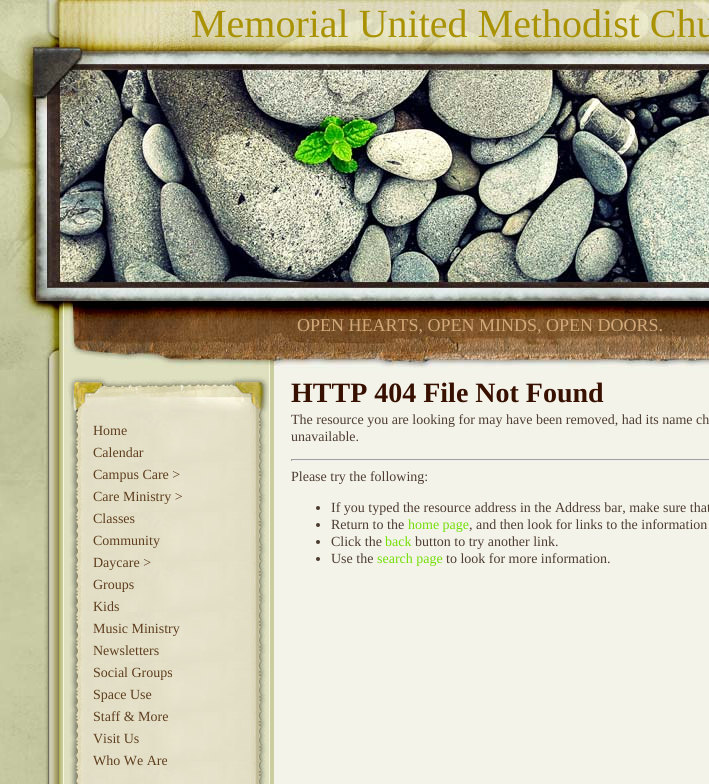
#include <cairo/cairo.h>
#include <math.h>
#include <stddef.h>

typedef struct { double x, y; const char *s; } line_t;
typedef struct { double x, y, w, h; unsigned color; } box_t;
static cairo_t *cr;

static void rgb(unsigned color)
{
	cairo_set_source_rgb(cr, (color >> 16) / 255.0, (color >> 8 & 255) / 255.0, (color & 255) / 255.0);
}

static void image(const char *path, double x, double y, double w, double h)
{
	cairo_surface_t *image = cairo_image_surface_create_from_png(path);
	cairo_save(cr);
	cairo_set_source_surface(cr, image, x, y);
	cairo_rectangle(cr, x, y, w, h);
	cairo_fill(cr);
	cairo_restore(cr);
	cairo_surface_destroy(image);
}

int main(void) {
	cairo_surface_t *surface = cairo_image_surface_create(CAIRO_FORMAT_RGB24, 709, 784);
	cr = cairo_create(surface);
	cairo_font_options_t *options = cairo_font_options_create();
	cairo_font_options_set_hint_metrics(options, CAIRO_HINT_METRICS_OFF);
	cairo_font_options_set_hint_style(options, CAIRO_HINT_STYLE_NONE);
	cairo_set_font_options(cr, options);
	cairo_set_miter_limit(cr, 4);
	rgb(0xffffff);
	cairo_paint(cr);
	image("img/1.png", 0, 480, 44, 304);
	image("img/2.png", 0, 370, 44, 110);
	image("img/3.png", 0, 0, 709, 370);
	image("img/4.png", 44, 370, 665, 414);
	image("img/5.png", 67, 376, 202, 36);
	image("img/6.png", 69, 412, 197, 372);
	{
		static const box_t items[] = {
			{291, 459, 418, 1, 0x9f9f9f},
			{291, 460, 418, 1, 0xeeeeee},
			{291, 459, 1, 2, 0x9f9f9f},
		};
		for (size_t i = 0; i < sizeof items / sizeof *items; i++) {
			rgb(items[i].color);
			cairo_rectangle(cr, items[i].x, items[i].y, items[i].w, items[i].h);
			cairo_fill(cr);
		}
	}
	rgb(0x4e3d32);
	cairo_arc(cr, 318, 508, 2, 0, 2 * M_PI);
	cairo_fill(cr);
	cairo_arc(cr, 318, 525, 2, 0, 2 * M_PI);
	cairo_fill(cr);
	cairo_arc(cr, 318, 542, 2, 0, 2 * M_PI);
	cairo_fill(cr);
	cairo_arc(cr, 318, 559, 2, 0, 2 * M_PI);
	cairo_fill(cr);
	cairo_select_font_face(cr, "Liberation Serif", CAIRO_FONT_SLANT_NORMAL, CAIRO_FONT_WEIGHT_NORMAL);
	cairo_set_font_size(cr, 40);
	rgb(0xa99305);
	cairo_move_to(cr, 191, 37);
	cairo_show_text(cr, "Memorial United Methodist Chu");
	cairo_set_font_size(cr, 18);
	rgb(0xd3a979);
	cairo_move_to(cr, 297, 331);
	cairo_show_text(cr, "OPEN HEARTS, OPEN MINDS, OPEN DOORS.");
	cairo_set_font_size(cr, 14);
	rgb(0x5e3e1e);
	{
		static const line_t items[] = {
			{93, 435, "Home"},
			{93, 457, "Calendar"},
			{93, 479, "Campus Care >"},
			{93, 501, "Care Ministry >"},
			{93, 523, "Classes"},
			{93, 545, "Community"},
			{93, 567, "Daycare >"},
			{93, 589, "Groups"},
			{93, 611, "Kids"},
			{93, 633, "Music Ministry"},
			{93, 655, "Newsletters"},
			{93, 677, "Social Groups"},
			{93, 699, "Space Use"},
			{93, 721, "Staff & More"},
			{93, 743, "Visit Us"},
			{93, 765, "Who We Are"},
		};
		for (size_t i = 0; i < sizeof items / sizeof *items; i++) {
			cairo_move_to(cr, items[i].x, items[i].y);
			cairo_show_text(cr, items[i].s);
		}
	}
	cairo_select_font_face(cr, "Liberation Serif", CAIRO_FONT_SLANT_NORMAL, CAIRO_FONT_WEIGHT_BOLD);
	cairo_set_font_size(cr, 28);
	rgb(0x381000);
	cairo_move_to(cr, 291, 402);
	cairo_show_text(cr, "HTTP 404 File Not Found");
	cairo_select_font_face(cr, "Liberation Serif", CAIRO_FONT_SLANT_NORMAL, CAIRO_FONT_WEIGHT_NORMAL);
	cairo_set_font_size(cr, 14);
	rgb(0x4e3d32);
	{
		static const line_t items[] = {
			{291, 424, "The resource you are looking for may have been removed, had its name ch"},
			{291, 441, "unavailable."},
			{291, 481, "Please try the following:"},
			{331, 512, "If you typed the resource address in the Address bar, make sure that"},
			{331, 529, "Return to the"},
		};
		for (size_t i = 0; i < sizeof items / sizeof *items; i++) {
			cairo_move_to(cr, items[i].x, items[i].y);
			cairo_show_text(cr, items[i].s);
		}
	}
	rgb(0x74de07);
	cairo_move_to(cr, 408, 529);
	cairo_show_text(cr, "home page");
	rgb(0x4e3d32);
	cairo_move_to(cr, 469, 529);
	cairo_show_text(cr, ", and then look for links to the information");
	cairo_move_to(cr, 331, 546);
	cairo_show_text(cr, "Click the");
	rgb(0x74de07);
	cairo_move_to(cr, 385, 546);
	cairo_show_text(cr, "back");
	rgb(0x4e3d32);
	cairo_move_to(cr, 415, 546);
	cairo_show_text(cr, "button to try another link.");
	cairo_move_to(cr, 331, 563);
	cairo_show_text(cr, "Use the");
	rgb(0x74de07);
	cairo_move_to(cr, 377, 563);
	cairo_show_text(cr, "search page");
	rgb(0x4e3d32);
	cairo_move_to(cr, 446, 563);
	cairo_show_text(cr, "to look for more information.");
	cairo_surface_write_to_png(surface, "page.png");
	cairo_font_options_destroy(options);
	cairo_destroy(cr);
	cairo_surface_destroy(surface);
	return 0;
}
